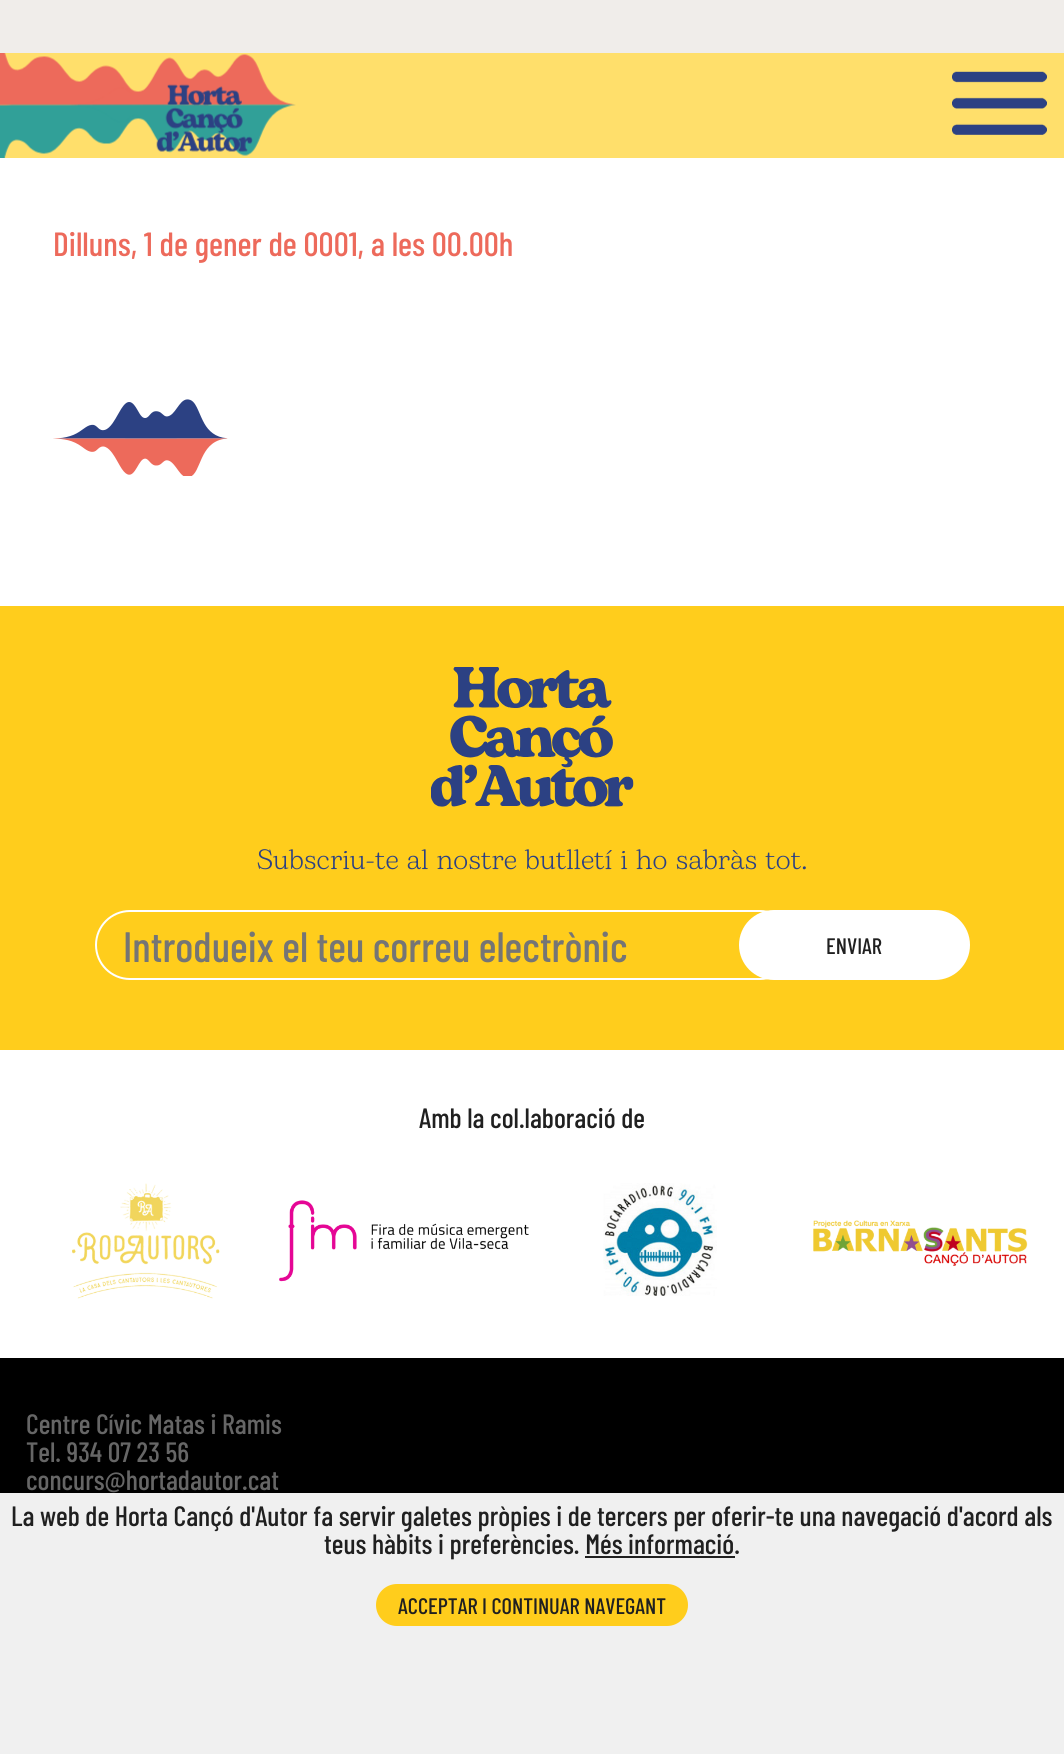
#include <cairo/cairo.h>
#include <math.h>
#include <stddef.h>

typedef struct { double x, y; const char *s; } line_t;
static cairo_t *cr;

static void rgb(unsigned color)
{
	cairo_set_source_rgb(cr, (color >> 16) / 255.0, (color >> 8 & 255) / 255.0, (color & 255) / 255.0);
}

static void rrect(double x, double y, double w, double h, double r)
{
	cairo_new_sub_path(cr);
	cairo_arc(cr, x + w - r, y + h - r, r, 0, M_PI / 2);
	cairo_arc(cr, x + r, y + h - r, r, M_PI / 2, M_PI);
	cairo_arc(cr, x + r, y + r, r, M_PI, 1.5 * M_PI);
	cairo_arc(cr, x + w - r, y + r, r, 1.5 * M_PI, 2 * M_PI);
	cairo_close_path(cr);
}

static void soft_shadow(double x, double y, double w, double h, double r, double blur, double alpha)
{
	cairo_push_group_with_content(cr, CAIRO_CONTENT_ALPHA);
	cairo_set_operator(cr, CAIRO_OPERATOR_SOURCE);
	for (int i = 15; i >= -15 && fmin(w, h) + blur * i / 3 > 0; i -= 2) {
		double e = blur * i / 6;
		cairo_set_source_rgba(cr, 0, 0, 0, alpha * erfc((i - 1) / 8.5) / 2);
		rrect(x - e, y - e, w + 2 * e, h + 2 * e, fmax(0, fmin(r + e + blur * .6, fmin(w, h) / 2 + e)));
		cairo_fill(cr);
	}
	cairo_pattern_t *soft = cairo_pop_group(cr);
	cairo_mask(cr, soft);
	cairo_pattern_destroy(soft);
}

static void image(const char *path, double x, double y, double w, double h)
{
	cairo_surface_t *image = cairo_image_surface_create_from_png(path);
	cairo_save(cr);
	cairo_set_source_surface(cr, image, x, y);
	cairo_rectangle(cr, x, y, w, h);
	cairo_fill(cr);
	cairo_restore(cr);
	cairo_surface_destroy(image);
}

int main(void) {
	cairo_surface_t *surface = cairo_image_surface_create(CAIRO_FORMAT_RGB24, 1064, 1754);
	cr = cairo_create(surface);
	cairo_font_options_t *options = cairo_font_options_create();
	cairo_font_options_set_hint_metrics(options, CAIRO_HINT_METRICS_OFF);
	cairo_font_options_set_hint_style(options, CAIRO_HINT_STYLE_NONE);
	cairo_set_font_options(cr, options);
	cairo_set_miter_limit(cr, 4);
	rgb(0xffffff);
	cairo_paint(cr);
	rgb(0xf0edea);
	cairo_rectangle(cr, 0, 0, 1064, 53);
	cairo_fill(cr);
	rgb(0xffdf6b);
	cairo_rectangle(cr, 0, 53, 1064, 105);
	cairo_fill(cr);
	image("img/1.png", 0, 53, 296, 105);
	image("img/2.png", 952, 71, 95, 64);
	image("img/3.png", 53, 399, 175, 77);
	rgb(0xffcd1c);
	cairo_rectangle(cr, 0, 606, 1064, 444);
	cairo_fill(cr);
	image("img/4.png", 431, 667, 203, 140);
	rrect(96, 911, 698, 68, 34);
	rgb(0xffffff);
	cairo_stroke(cr);
	rrect(739, 910, 231, 70, 35);
	cairo_fill(cr);
	image("img/5.png", 72, 1183, 148, 116);
	image("img/6.png", 279, 1200, 250, 82);
	image("img/7.png", 603, 1183, 114, 113);
	image("img/8.png", 813, 1220, 215, 46);
	rgb(0x000000);
	cairo_rectangle(cr, 0, 1358, 1064, 135);
	cairo_fill(cr);
	rgb(0x000000);
	soft_shadow(0, 1493, 1064, 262, 0, 4.5, 1);
	rgb(0xf0f0f0);
	cairo_rectangle(cr, 0, 1493, 1064, 261);
	cairo_fill(cr);
	rgb(0x202020);
	cairo_rectangle(cr, 585, 1556, 150, 2);
	cairo_fill(cr);
	rgb(0xffcd1c);
	rrect(376, 1584, 312, 42, 21);
	cairo_fill(cr);
	cairo_select_font_face(cr, "Barlow Condensed Medium", CAIRO_FONT_SLANT_NORMAL, CAIRO_FONT_WEIGHT_NORMAL);
	cairo_set_font_size(cr, 33.6);
	rgb(0xed6a5b);
	cairo_move_to(cr, 53, 256);
	cairo_show_text(cr, "Dilluns, 1 de gener de 0001, a les 00.00h");
	cairo_select_font_face(cr, "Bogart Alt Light", CAIRO_FONT_SLANT_NORMAL, CAIRO_FONT_WEIGHT_NORMAL);
	cairo_set_font_size(cr, 28);
	rgb(0x2c4183);
	cairo_move_to(cr, 257, 869);
	cairo_show_text(cr, "Subscriu-te al nostre butlletí i ho sabràs tot.");
	cairo_select_font_face(cr, "Barlow Condensed Medium", CAIRO_FONT_SLANT_NORMAL, CAIRO_FONT_WEIGHT_NORMAL);
	cairo_set_font_size(cr, 42.5);
	rgb(0x757575);
	cairo_move_to(cr, 123, 962);
	cairo_show_text(cr, "Introdueix el teu correu electrònic");
	cairo_set_font_size(cr, 22.4);
	rgb(0x202020);
	cairo_move_to(cr, 826, 954);
	cairo_show_text(cr, "ENVIAR");
	cairo_set_font_size(cr, 28);
	cairo_move_to(cr, 419, 1128);
	cairo_show_text(cr, "Amb la col.laboració de");
	rgb(0x666666);
	{
		static const line_t items[] = {
			{26, 1434, "Centre Cívic Matas i Ramis"},
			{26, 1462, "Tel. 934 07 23 56"},
			{26, 1490, "concurs@hortadautor.cat"},
		};
		for (size_t i = 0; i < sizeof items / sizeof *items; i++) {
			cairo_move_to(cr, items[i].x, items[i].y);
			cairo_show_text(cr, items[i].s);
		}
	}
	rgb(0x202020);
	cairo_move_to(cr, 11, 1526);
	cairo_show_text(cr, "La web de Horta Cançó d'Autor fa servir galetes pròpies i de tercers per oferir-te una navegació d'acord als");
	cairo_move_to(cr, 324, 1554);
	cairo_show_text(cr, "teus hàbits i preferències. Més informació.");
	cairo_set_font_size(cr, 22.4);
	cairo_move_to(cr, 398, 1614);
	cairo_show_text(cr, "ACCEPTAR I CONTINUAR NAVEGANT");
	cairo_surface_write_to_png(surface, "page.png");
	cairo_font_options_destroy(options);
	cairo_destroy(cr);
	cairo_surface_destroy(surface);
	return 0;
}
